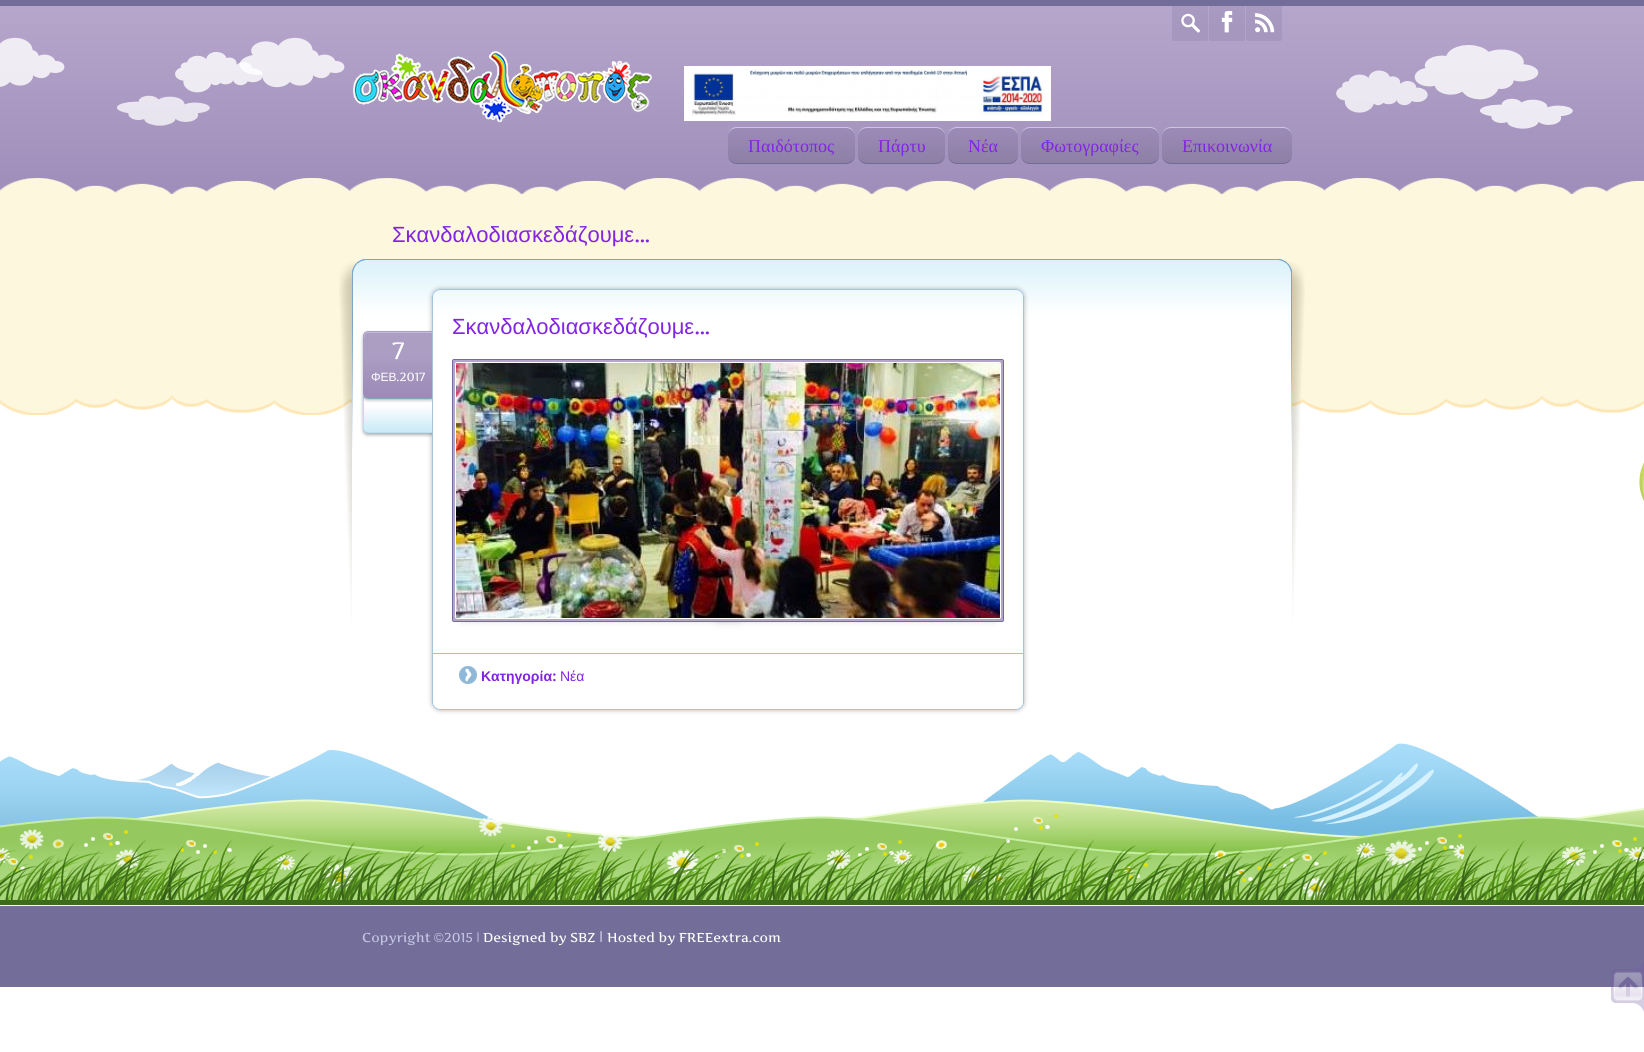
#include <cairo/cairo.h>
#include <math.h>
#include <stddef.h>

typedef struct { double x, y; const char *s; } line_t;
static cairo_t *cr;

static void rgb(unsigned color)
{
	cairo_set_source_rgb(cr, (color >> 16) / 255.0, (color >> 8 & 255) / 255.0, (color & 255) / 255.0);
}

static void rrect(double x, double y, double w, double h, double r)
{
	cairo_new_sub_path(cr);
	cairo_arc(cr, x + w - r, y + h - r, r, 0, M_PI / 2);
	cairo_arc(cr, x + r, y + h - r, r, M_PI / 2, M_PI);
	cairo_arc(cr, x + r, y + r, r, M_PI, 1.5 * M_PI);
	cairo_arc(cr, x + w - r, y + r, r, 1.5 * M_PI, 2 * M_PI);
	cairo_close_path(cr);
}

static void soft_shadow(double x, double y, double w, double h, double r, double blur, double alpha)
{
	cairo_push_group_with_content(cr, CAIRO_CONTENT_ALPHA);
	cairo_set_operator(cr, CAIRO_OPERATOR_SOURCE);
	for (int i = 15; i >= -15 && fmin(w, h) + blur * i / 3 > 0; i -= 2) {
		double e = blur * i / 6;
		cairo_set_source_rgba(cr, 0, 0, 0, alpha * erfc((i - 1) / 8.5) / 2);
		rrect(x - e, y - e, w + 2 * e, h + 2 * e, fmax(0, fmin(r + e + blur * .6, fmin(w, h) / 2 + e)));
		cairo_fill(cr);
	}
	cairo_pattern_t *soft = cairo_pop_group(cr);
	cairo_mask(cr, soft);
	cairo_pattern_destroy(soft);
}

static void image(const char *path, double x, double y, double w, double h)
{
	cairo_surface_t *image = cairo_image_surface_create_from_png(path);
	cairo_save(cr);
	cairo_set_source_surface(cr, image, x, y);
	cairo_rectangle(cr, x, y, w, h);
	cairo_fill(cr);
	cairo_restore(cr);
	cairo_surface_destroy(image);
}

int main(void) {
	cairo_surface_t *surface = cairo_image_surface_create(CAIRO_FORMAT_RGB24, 1644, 1052);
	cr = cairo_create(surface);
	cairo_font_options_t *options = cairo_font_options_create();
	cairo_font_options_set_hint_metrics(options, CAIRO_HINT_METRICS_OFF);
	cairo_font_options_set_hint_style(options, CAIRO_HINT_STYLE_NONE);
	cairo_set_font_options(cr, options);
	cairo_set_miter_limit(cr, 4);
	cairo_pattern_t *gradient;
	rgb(0xffffff);
	cairo_paint(cr);
	rgb(0x736d9a);
	cairo_rectangle(cr, 0, 0, 1644, 6);
	cairo_fill(cr);
	gradient = cairo_pattern_create_linear(822, 6, 822, 196);
	cairo_pattern_add_color_stop_rgba(gradient, 0, 0.714, 0.651, 0.796, 1);
	cairo_pattern_add_color_stop_rgba(gradient, 1, 0.62, 0.553, 0.729, 1);
	cairo_set_source(cr, gradient);
	cairo_pattern_destroy(gradient);
	cairo_rectangle(cr, 0, 6, 1644, 188);
	cairo_fill(cr);
	cairo_set_source_rgba(cr, 0.451, 0.427, 0.604, 0.2);
	cairo_new_path(cr);
	cairo_move_to(cr, 1172, 6);
	cairo_line_to(cr, 1208, 6);
	cairo_line_to(cr, 1208, 39);
	cairo_curve_to(cr, 1208, 40, 1207, 41, 1206, 41);
	cairo_line_to(cr, 1174, 41);
	cairo_curve_to(cr, 1173, 41, 1172, 40, 1172, 39);
	cairo_close_path(cr);
	cairo_fill(cr);
	image("img/1.png", 1181, 13, 19, 20);
	cairo_new_path(cr);
	cairo_move_to(cr, 1209, 6);
	cairo_line_to(cr, 1245, 6);
	cairo_line_to(cr, 1245, 39);
	cairo_curve_to(cr, 1245, 40, 1244, 41, 1243, 41);
	cairo_line_to(cr, 1211, 41);
	cairo_curve_to(cr, 1210, 41, 1209, 40, 1209, 39);
	cairo_close_path(cr);
	cairo_fill(cr);
	image("img/2.png", 1221, 11, 12, 22);
	cairo_new_path(cr);
	cairo_move_to(cr, 1246, 6);
	cairo_line_to(cr, 1282, 6);
	cairo_line_to(cr, 1282, 39);
	cairo_curve_to(cr, 1282, 40, 1281, 41, 1280, 41);
	cairo_line_to(cr, 1248, 41);
	cairo_curve_to(cr, 1247, 41, 1246, 40, 1246, 39);
	cairo_close_path(cr);
	cairo_fill(cr);
	image("img/3.png", 1255, 13, 20, 20);
	image("img/4.png", 0, 37, 345, 89);
	image("img/5.png", 353, 50, 300, 73);
	image("img/6.png", 684, 66, 367, 55);
	image("img/7.png", 1336, 45, 237, 84);
	cairo_save(cr);
	rrect(728, 127, 127, 37, 9);
	cairo_clip(cr);
	gradient = cairo_pattern_create_linear(792, 128, 792, 163);
	cairo_pattern_add_color_stop_rgba(gradient, 0, 0.612, 0.545, 0.722, 1);
	cairo_pattern_add_color_stop_rgba(gradient, 1, 0.553, 0.498, 0.647, 1);
	cairo_set_source(cr, gradient);
	cairo_pattern_destroy(gradient);
	cairo_rectangle(cr, 728, 128, 127, 35);
	cairo_fill(cr);
	cairo_restore(cr);
	rgb(0xcec5dc);
	cairo_new_path(cr);
	cairo_move_to(cr, 737, 127);
	cairo_curve_to(cr, 732, 127, 728, 131, 728, 136);
	cairo_curve_to(cr, 728, 132, 732, 128, 737, 128);
	cairo_line_to(cr, 846, 128);
	cairo_curve_to(cr, 851, 128, 855, 132, 855, 136);
	cairo_curve_to(cr, 855, 131, 851, 127, 846, 127);
	cairo_close_path(cr);
	cairo_fill(cr);
	rgb(0x716b97);
	cairo_new_path(cr);
	cairo_move_to(cr, 846, 164);
	cairo_curve_to(cr, 851, 164, 855, 160, 855, 155);
	cairo_curve_to(cr, 855, 159, 851, 163, 846, 163);
	cairo_line_to(cr, 737, 163);
	cairo_curve_to(cr, 732, 163, 728, 159, 728, 155);
	cairo_curve_to(cr, 728, 160, 732, 164, 737, 164);
	cairo_close_path(cr);
	cairo_fill(cr);
	cairo_save(cr);
	rrect(858, 127, 87, 37, 9);
	cairo_clip(cr);
	gradient = cairo_pattern_create_linear(902, 128, 902, 163);
	cairo_pattern_add_color_stop_rgba(gradient, 0, 0.612, 0.545, 0.722, 1);
	cairo_pattern_add_color_stop_rgba(gradient, 1, 0.553, 0.498, 0.647, 1);
	cairo_set_source(cr, gradient);
	cairo_pattern_destroy(gradient);
	cairo_rectangle(cr, 858, 128, 87, 35);
	cairo_fill(cr);
	cairo_restore(cr);
	rgb(0xcec5dc);
	cairo_new_path(cr);
	cairo_move_to(cr, 867, 127);
	cairo_curve_to(cr, 862, 127, 858, 131, 858, 136);
	cairo_curve_to(cr, 858, 132, 862, 128, 867, 128);
	cairo_line_to(cr, 936, 128);
	cairo_curve_to(cr, 941, 128, 945, 132, 945, 136);
	cairo_curve_to(cr, 945, 131, 941, 127, 936, 127);
	cairo_close_path(cr);
	cairo_fill(cr);
	rgb(0x716b97);
	cairo_new_path(cr);
	cairo_move_to(cr, 936, 164);
	cairo_curve_to(cr, 941, 164, 945, 160, 945, 155);
	cairo_curve_to(cr, 945, 159, 941, 163, 936, 163);
	cairo_line_to(cr, 867, 163);
	cairo_curve_to(cr, 862, 163, 858, 159, 858, 155);
	cairo_curve_to(cr, 858, 160, 862, 164, 867, 164);
	cairo_close_path(cr);
	cairo_fill(cr);
	cairo_save(cr);
	rrect(948, 127, 70, 37, 9);
	cairo_clip(cr);
	gradient = cairo_pattern_create_linear(983, 128, 983, 163);
	cairo_pattern_add_color_stop_rgba(gradient, 0, 0.612, 0.545, 0.722, 1);
	cairo_pattern_add_color_stop_rgba(gradient, 1, 0.553, 0.498, 0.647, 1);
	cairo_set_source(cr, gradient);
	cairo_pattern_destroy(gradient);
	cairo_rectangle(cr, 948, 128, 70, 35);
	cairo_fill(cr);
	cairo_restore(cr);
	rgb(0xcec5dc);
	cairo_new_path(cr);
	cairo_move_to(cr, 957, 127);
	cairo_curve_to(cr, 952, 127, 948, 131, 948, 136);
	cairo_curve_to(cr, 948, 132, 952, 128, 957, 128);
	cairo_line_to(cr, 1009, 128);
	cairo_curve_to(cr, 1014, 128, 1018, 132, 1018, 136);
	cairo_curve_to(cr, 1018, 131, 1014, 127, 1009, 127);
	cairo_close_path(cr);
	cairo_fill(cr);
	rgb(0x716b97);
	cairo_new_path(cr);
	cairo_move_to(cr, 1009, 164);
	cairo_curve_to(cr, 1014, 164, 1018, 160, 1018, 155);
	cairo_curve_to(cr, 1018, 159, 1014, 163, 1009, 163);
	cairo_line_to(cr, 957, 163);
	cairo_curve_to(cr, 952, 163, 948, 159, 948, 155);
	cairo_curve_to(cr, 948, 160, 952, 164, 957, 164);
	cairo_close_path(cr);
	cairo_fill(cr);
	cairo_save(cr);
	rrect(1021, 127, 138, 37, 9);
	cairo_clip(cr);
	gradient = cairo_pattern_create_linear(1090, 128, 1090, 163);
	cairo_pattern_add_color_stop_rgba(gradient, 0, 0.612, 0.545, 0.722, 1);
	cairo_pattern_add_color_stop_rgba(gradient, 1, 0.553, 0.498, 0.647, 1);
	cairo_set_source(cr, gradient);
	cairo_pattern_destroy(gradient);
	cairo_rectangle(cr, 1021, 128, 138, 35);
	cairo_fill(cr);
	cairo_restore(cr);
	rgb(0xcec5dc);
	cairo_new_path(cr);
	cairo_move_to(cr, 1030, 127);
	cairo_curve_to(cr, 1025, 127, 1021, 131, 1021, 136);
	cairo_curve_to(cr, 1021, 132, 1025, 128, 1030, 128);
	cairo_line_to(cr, 1150, 128);
	cairo_curve_to(cr, 1155, 128, 1159, 132, 1159, 136);
	cairo_curve_to(cr, 1159, 131, 1155, 127, 1150, 127);
	cairo_close_path(cr);
	cairo_fill(cr);
	rgb(0x716b97);
	cairo_new_path(cr);
	cairo_move_to(cr, 1150, 164);
	cairo_curve_to(cr, 1155, 164, 1159, 160, 1159, 155);
	cairo_curve_to(cr, 1159, 159, 1155, 163, 1150, 163);
	cairo_line_to(cr, 1030, 163);
	cairo_curve_to(cr, 1025, 163, 1021, 159, 1021, 155);
	cairo_curve_to(cr, 1021, 160, 1025, 164, 1030, 164);
	cairo_close_path(cr);
	cairo_fill(cr);
	cairo_save(cr);
	rrect(1162, 127, 130, 37, 9);
	cairo_clip(cr);
	gradient = cairo_pattern_create_linear(1227, 128, 1227, 163);
	cairo_pattern_add_color_stop_rgba(gradient, 0, 0.612, 0.545, 0.722, 1);
	cairo_pattern_add_color_stop_rgba(gradient, 1, 0.553, 0.498, 0.647, 1);
	cairo_set_source(cr, gradient);
	cairo_pattern_destroy(gradient);
	cairo_rectangle(cr, 1162, 128, 130, 35);
	cairo_fill(cr);
	cairo_restore(cr);
	rgb(0xcec5dc);
	cairo_new_path(cr);
	cairo_move_to(cr, 1171, 127);
	cairo_curve_to(cr, 1166, 127, 1162, 131, 1162, 136);
	cairo_curve_to(cr, 1162, 132, 1166, 128, 1171, 128);
	cairo_line_to(cr, 1283, 128);
	cairo_curve_to(cr, 1288, 128, 1292, 132, 1292, 136);
	cairo_curve_to(cr, 1292, 131, 1288, 127, 1283, 127);
	cairo_close_path(cr);
	cairo_fill(cr);
	rgb(0x716b97);
	cairo_new_path(cr);
	cairo_move_to(cr, 1283, 164);
	cairo_curve_to(cr, 1288, 164, 1292, 160, 1292, 155);
	cairo_curve_to(cr, 1292, 159, 1288, 163, 1283, 163);
	cairo_line_to(cr, 1171, 163);
	cairo_curve_to(cr, 1166, 163, 1162, 159, 1162, 155);
	cairo_curve_to(cr, 1162, 160, 1166, 164, 1171, 164);
	cairo_close_path(cr);
	cairo_fill(cr);
	image("img/8.png", 0, 178, 1644, 17);
	rgb(0xfdf7de);
	cairo_rectangle(cr, 0, 195, 1644, 200);
	cairo_fill(cr);
	image("img/9.png", 0, 395, 1644, 20);
	image("img/10.png", 0, 743, 1644, 157);
	rgb(0x3b6b1b);
	cairo_rectangle(cr, 0, 900, 1644, 5);
	cairo_fill(cr);
	image("img/11.png", 339, 259, 966, 361);
	cairo_save(cr);
	cairo_set_fill_rule(cr, CAIRO_FILL_RULE_EVEN_ODD);
	cairo_new_path(cr);
	cairo_move_to(cr, 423, 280);
	cairo_line_to(cr, 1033, 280);
	cairo_line_to(cr, 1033, 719);
	cairo_line_to(cr, 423, 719);
	cairo_close_path(cr);
	cairo_move_to(cr, 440, 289);
	cairo_line_to(cr, 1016, 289);
	cairo_curve_to(cr, 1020.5, 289, 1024, 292.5, 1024, 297);
	cairo_line_to(cr, 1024, 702);
	cairo_curve_to(cr, 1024, 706.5, 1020.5, 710, 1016, 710);
	cairo_line_to(cr, 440, 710);
	cairo_curve_to(cr, 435.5, 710, 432, 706.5, 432, 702);
	cairo_line_to(cr, 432, 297);
	cairo_curve_to(cr, 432, 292.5, 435.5, 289, 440, 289);
	cairo_close_path(cr);
	cairo_clip(cr);
	rgb(0x000000);
	soft_shadow(432, 289, 592, 421, 8, 2.5, 0.3);
	cairo_restore(cr);
	rrect(432.5, 289.5, 591, 420, 7.5);
	rgb(0xa3c5e0);
	cairo_set_line_width(cr, 1);
	cairo_stroke(cr);
	rgb(0x000000);
	soft_shadow(462, 602, 276, 15, 0, 5, 0.4);
	soft_shadow(718, 602, 276, 15, 0, 5, 0.4);
	rgb(0xb6a5cb);
	rrect(452.5, 359.5, 551, 262, 1.5);
	cairo_fill_preserve(cr);
	rgb(0x726c98);
	cairo_stroke(cr);
	rrect(455.5, 362.5, 545, 256, 1.5);
	rgb(0xffffff);
	cairo_stroke(cr);
	image("img/12.png", 456, 363, 544, 255);
	image("img/13.png", 360, 330, 72, 108);
	rgb(0x9dc1de);
	cairo_rectangle(cr, 433, 653, 590, 1);
	cairo_fill(cr);
	image("img/14.png", 459, 666, 18, 18);
	image("img/15.png", 1639, 462, 5, 39);
	rgb(0x736d9a);
	cairo_rectangle(cr, 0, 906, 1644, 81);
	cairo_fill(cr);
	image("img/16.png", 1611, 962, 33, 50);
	cairo_select_font_face(cr, "Liberation Serif", CAIRO_FONT_SLANT_NORMAL, CAIRO_FONT_WEIGHT_NORMAL);
	cairo_set_font_size(cr, 18);
	rgb(0x8224e3);
	{
		static const line_t items[] = {
			{748, 152, "Παιδότοπος"},
			{878, 152, "Πάρτυ"},
			{968, 152, "Νέα"},
			{1041, 152, "Φωτογραφίες"},
			{1182, 152, "Επικοινωνία"},
		};
		for (size_t i = 0; i < sizeof items / sizeof *items; i++) {
			cairo_move_to(cr, items[i].x, items[i].y);
			cairo_show_text(cr, items[i].s);
		}
	}
	cairo_select_font_face(cr, "Liberation Sans", CAIRO_FONT_SLANT_NORMAL, CAIRO_FONT_WEIGHT_NORMAL);
	cairo_set_font_size(cr, 22);
	cairo_move_to(cr, 392, 242);
	cairo_show_text(cr, "Σκανδαλοδιασκεδάζουμε");
	cairo_select_font_face(cr, "Artifika", CAIRO_FONT_SLANT_NORMAL, CAIRO_FONT_WEIGHT_NORMAL);
	cairo_move_to(cr, 634, 242);
	cairo_show_text(cr, "…");
	cairo_select_font_face(cr, "Liberation Sans", CAIRO_FONT_SLANT_NORMAL, CAIRO_FONT_WEIGHT_NORMAL);
	cairo_move_to(cr, 452, 334);
	cairo_show_text(cr, "Σκανδαλοδιασκεδάζουμε");
	cairo_select_font_face(cr, "Artifika", CAIRO_FONT_SLANT_NORMAL, CAIRO_FONT_WEIGHT_NORMAL);
	cairo_move_to(cr, 694, 334);
	cairo_show_text(cr, "…");
	cairo_set_font_size(cr, 24);
	rgb(0xffffff);
	cairo_move_to(cr, 392, 359);
	cairo_show_text(cr, "7");
	cairo_select_font_face(cr, "Liberation Sans", CAIRO_FONT_SLANT_NORMAL, CAIRO_FONT_WEIGHT_NORMAL);
	cairo_set_font_size(cr, 12);
	cairo_move_to(cr, 371, 381);
	cairo_show_text(cr, "ΦΕΒ");
	cairo_select_font_face(cr, "Artifika", CAIRO_FONT_SLANT_NORMAL, CAIRO_FONT_WEIGHT_NORMAL);
	cairo_move_to(cr, 396, 381);
	cairo_show_text(cr, ".2017");
	cairo_select_font_face(cr, "Liberation Sans", CAIRO_FONT_SLANT_NORMAL, CAIRO_FONT_WEIGHT_BOLD);
	cairo_set_font_size(cr, 14);
	rgb(0x8224e3);
	cairo_move_to(cr, 481, 681);
	cairo_show_text(cr, "Κατηγορία");
	cairo_select_font_face(cr, "Artifika", CAIRO_FONT_SLANT_NORMAL, CAIRO_FONT_WEIGHT_BOLD);
	cairo_move_to(cr, 552, 681);
	cairo_show_text(cr, ":");
	cairo_select_font_face(cr, "Liberation Sans", CAIRO_FONT_SLANT_NORMAL, CAIRO_FONT_WEIGHT_NORMAL);
	cairo_move_to(cr, 560, 681);
	cairo_show_text(cr, "Νέα");
	cairo_select_font_face(cr, "Artifika", CAIRO_FONT_SLANT_NORMAL, CAIRO_FONT_WEIGHT_NORMAL);
	cairo_set_font_size(cr, 13);
	rgb(0xc7c7e3);
	cairo_move_to(cr, 362, 942);
	cairo_show_text(cr, "Copyright");
	cairo_select_font_face(cr, "Liberation Sans", CAIRO_FONT_SLANT_NORMAL, CAIRO_FONT_WEIGHT_NORMAL);
	cairo_move_to(cr, 434, 942);
	cairo_show_text(cr, "©");
	cairo_select_font_face(cr, "Artifika", CAIRO_FONT_SLANT_NORMAL, CAIRO_FONT_WEIGHT_NORMAL);
	cairo_move_to(cr, 444, 942);
	cairo_show_text(cr, "2015 |");
	rgb(0xffffff);
	cairo_move_to(cr, 483, 942);
	cairo_show_text(cr, "Designed by SBZ");
	cairo_select_font_face(cr, "Artifika", CAIRO_FONT_SLANT_NORMAL, CAIRO_FONT_WEIGHT_BOLD);
	cairo_set_font_size(cr, 14);
	rgb(0xc7c7e3);
	cairo_move_to(cr, 599, 942);
	cairo_show_text(cr, "|");
	cairo_select_font_face(cr, "Artifika", CAIRO_FONT_SLANT_NORMAL, CAIRO_FONT_WEIGHT_NORMAL);
	cairo_set_font_size(cr, 13);
	rgb(0xffffff);
	cairo_move_to(cr, 607, 942);
	cairo_show_text(cr, "Hosted by FREEextra.com");
	cairo_surface_write_to_png(surface, "page.png");
	cairo_font_options_destroy(options);
	cairo_destroy(cr);
	cairo_surface_destroy(surface);
	return 0;
}
